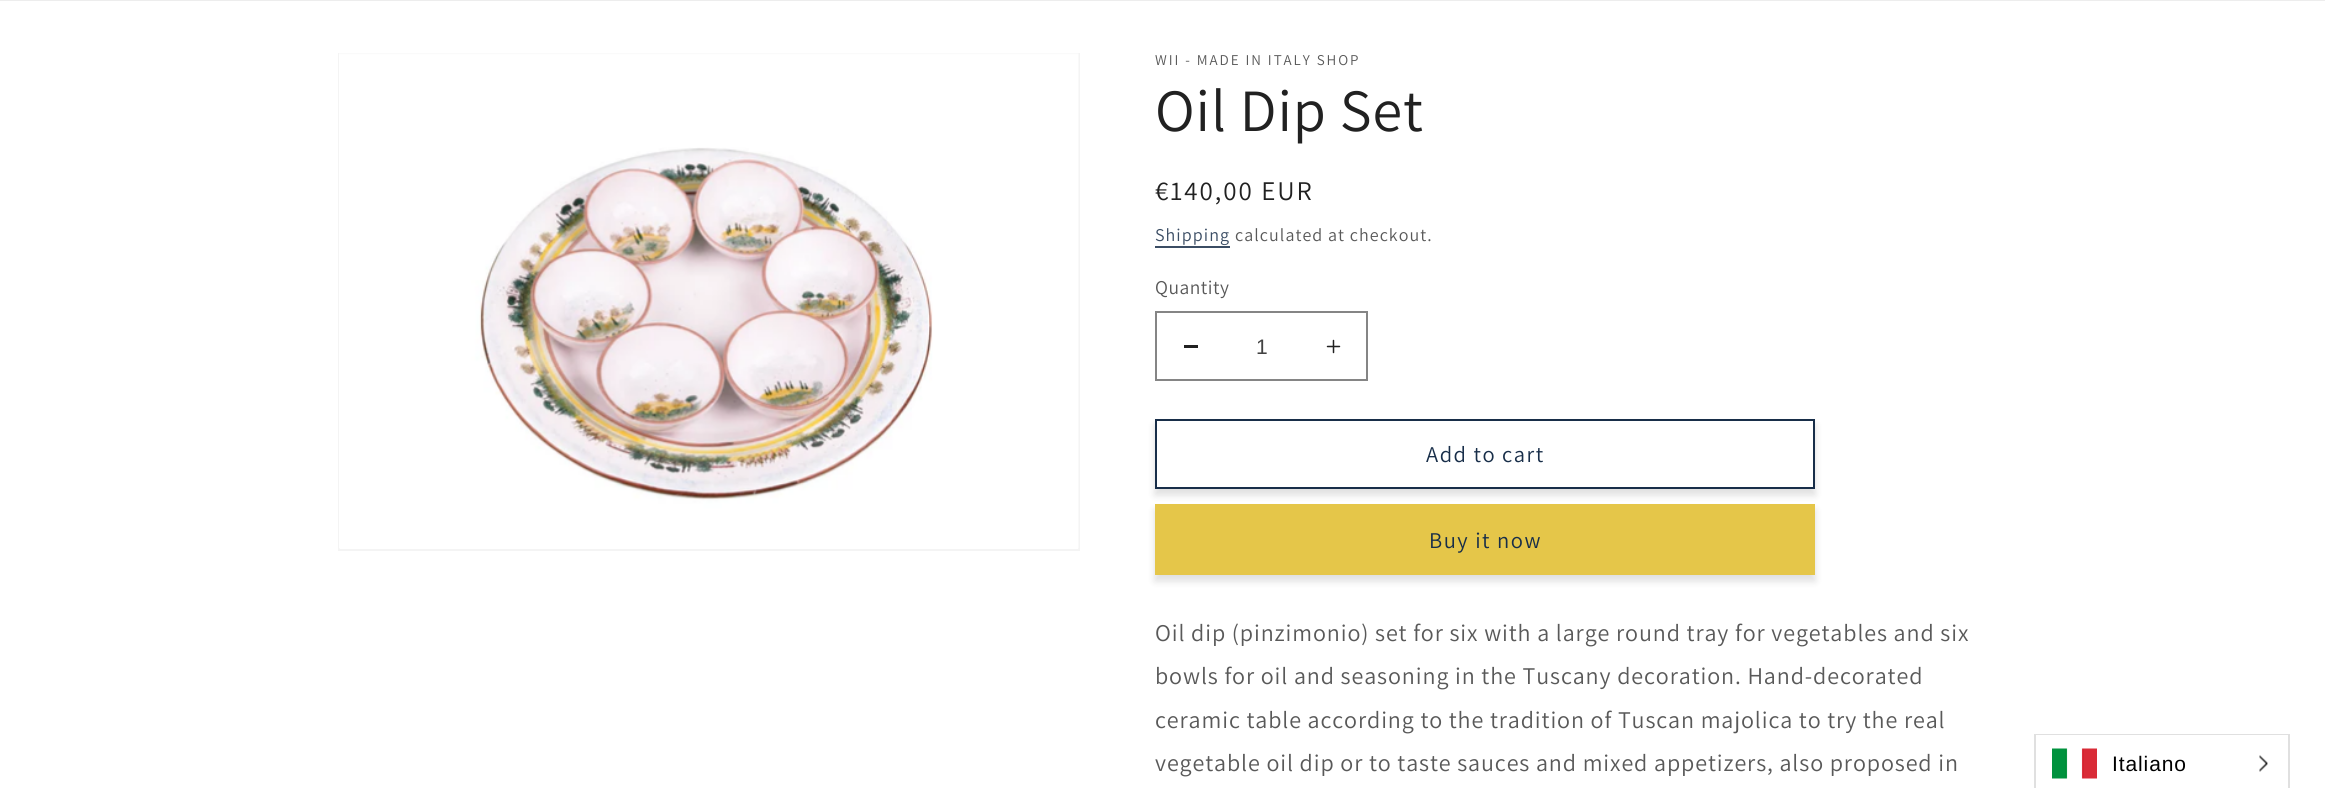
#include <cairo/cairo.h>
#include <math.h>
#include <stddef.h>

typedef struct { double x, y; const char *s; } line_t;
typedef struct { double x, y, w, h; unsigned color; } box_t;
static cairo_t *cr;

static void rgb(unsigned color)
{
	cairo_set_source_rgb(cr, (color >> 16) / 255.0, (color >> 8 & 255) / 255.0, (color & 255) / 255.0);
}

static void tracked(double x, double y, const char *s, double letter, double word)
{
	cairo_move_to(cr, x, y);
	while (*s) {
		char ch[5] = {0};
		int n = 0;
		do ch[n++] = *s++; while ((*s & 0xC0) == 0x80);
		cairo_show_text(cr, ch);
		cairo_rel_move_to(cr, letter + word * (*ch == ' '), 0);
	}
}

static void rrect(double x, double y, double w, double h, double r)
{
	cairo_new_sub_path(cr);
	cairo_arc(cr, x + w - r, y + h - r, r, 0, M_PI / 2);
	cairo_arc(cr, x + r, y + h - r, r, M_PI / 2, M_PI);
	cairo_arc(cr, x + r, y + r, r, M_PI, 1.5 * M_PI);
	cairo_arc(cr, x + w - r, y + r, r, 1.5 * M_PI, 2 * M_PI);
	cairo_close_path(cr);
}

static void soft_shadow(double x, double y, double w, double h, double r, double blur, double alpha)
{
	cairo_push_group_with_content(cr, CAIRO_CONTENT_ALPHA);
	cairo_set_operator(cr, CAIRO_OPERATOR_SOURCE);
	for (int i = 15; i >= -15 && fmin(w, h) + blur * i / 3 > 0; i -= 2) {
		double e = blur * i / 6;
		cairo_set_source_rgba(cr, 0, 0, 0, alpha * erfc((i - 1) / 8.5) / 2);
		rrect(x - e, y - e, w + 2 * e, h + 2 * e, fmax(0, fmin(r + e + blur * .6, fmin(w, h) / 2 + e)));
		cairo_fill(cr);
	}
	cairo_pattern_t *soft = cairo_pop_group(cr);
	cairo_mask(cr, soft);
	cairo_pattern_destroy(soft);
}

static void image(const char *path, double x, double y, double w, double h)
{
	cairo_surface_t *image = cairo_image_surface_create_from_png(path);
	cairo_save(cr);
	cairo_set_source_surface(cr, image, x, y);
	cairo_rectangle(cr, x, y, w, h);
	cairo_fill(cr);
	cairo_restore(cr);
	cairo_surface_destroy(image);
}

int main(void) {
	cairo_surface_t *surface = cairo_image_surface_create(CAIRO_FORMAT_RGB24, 2325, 788);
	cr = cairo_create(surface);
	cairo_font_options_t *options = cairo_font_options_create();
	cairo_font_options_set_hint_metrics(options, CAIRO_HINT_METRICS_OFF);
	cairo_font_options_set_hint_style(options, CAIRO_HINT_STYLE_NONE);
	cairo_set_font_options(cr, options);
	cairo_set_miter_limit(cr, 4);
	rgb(0xffffff);
	cairo_paint(cr);
	rgb(0xededed);
	cairo_rectangle(cr, 0, 0, 2325, 1);
	cairo_fill(cr);
	cairo_rectangle(cr, 339, 54, 740, 496);
	rgb(0xf4f4f4);
	cairo_stroke(cr);
	image("img/1.png", 339, 53, 740, 496);
	rgb(0x3b4d64);
	cairo_rectangle(cr, 1155, 246, 75, 2);
	cairo_fill(cr);
	rgb(0x212121);
	cairo_rectangle(cr, 1184, 345, 14, 3);
	cairo_fill(cr);
	image("img/2.png", 1326, 339, 15, 15);
	cairo_rectangle(cr, 1156, 312, 211, 68);
	rgb(0x858585);
	cairo_stroke(cr);
	cairo_save(cr);
	cairo_set_fill_rule(cr, CAIRO_FILL_RULE_EVEN_ODD);
	cairo_new_path(cr);
	cairo_move_to(cr, 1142, 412);
	cairo_line_to(cr, 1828, 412);
	cairo_line_to(cr, 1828, 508);
	cairo_line_to(cr, 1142, 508);
	cairo_close_path(cr);
	cairo_move_to(cr, 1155, 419);
	cairo_line_to(cr, 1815, 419);
	cairo_line_to(cr, 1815, 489);
	cairo_line_to(cr, 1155, 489);
	cairo_close_path(cr);
	cairo_clip(cr);
	rgb(0x212121);
	soft_shadow(1155, 425, 660, 70, 0, 4, 0.15);
	cairo_restore(cr);
	cairo_rectangle(cr, 1156, 420, 658, 68);
	rgb(0x182e49);
	cairo_stroke(cr);
	rgb(0x212121);
	soft_shadow(1155, 510, 660, 71, 0, 4, 0.15);
	{
		static const box_t items[] = {
			{1155, 504, 660, 71, 0xe5c649},
			{2034, 734, 255, 1, 0xe0e0e0},
			{2288, 734, 2, 54, 0xe0e0e0},
			{2034, 734, 2, 54, 0xe0e0e0},
		};
		for (size_t i = 0; i < sizeof items / sizeof *items; i++) {
			rgb(items[i].color);
			cairo_rectangle(cr, items[i].x, items[i].y, items[i].w, items[i].h);
			cairo_fill(cr);
		}
	}
	image("img/3.png", 2052, 748, 45, 31);
	image("img/4.png", 2259, 755, 9, 17);
	cairo_select_font_face(cr, "Assistant", CAIRO_FONT_SLANT_NORMAL, CAIRO_FONT_WEIGHT_NORMAL);
	cairo_set_font_size(cr, 15);
	rgb(0x595959);
	tracked(1155, 65, "WII - MADE IN ITALY SHOP", 1.95, 0);
	cairo_set_font_size(cr, 60);
	rgb(0x212121);
	tracked(1155, 131, "Oil Dip Set", 0.9, 0);
	cairo_set_font_size(cr, 27);
	tracked(1155, 200, "€140,00 EUR", 1.95, 0);
	cairo_set_font_size(cr, 18);
	rgb(0x3b4d64);
	tracked(1155, 241, "Shipping", 1.05, 0);
	rgb(0x595959);
	tracked(1235, 241, "calculated at checkout.", 1.05, 0);
	cairo_set_font_size(cr, 19.5);
	tracked(1155, 294, "Quantity", 0.5, 0);
	cairo_select_font_face(cr, "Liberation Sans", CAIRO_FONT_SLANT_NORMAL, CAIRO_FONT_WEIGHT_NORMAL);
	cairo_set_font_size(cr, 21);
	rgb(0x424242);
	cairo_move_to(cr, 1256, 354);
	cairo_show_text(cr, "1");
	cairo_select_font_face(cr, "Assistant", CAIRO_FONT_SLANT_NORMAL, CAIRO_FONT_WEIGHT_NORMAL);
	cairo_set_font_size(cr, 22.5);
	rgb(0x182e49);
	tracked(1426, 462, "Add to cart", 1.5, 0);
	tracked(1429, 548, "Buy it now", 1.5, 0);
	cairo_set_font_size(cr, 24);
	rgb(0x595959);
	{
		static const line_t items[] = {
			{1155, 641, "Oil dip (pinzimonio) set for six with a large round tray for vegetables and six"},
			{1155, 684, "bowls for oil and seasoning in the Tuscany decoration. Hand-decorated"},
			{1155, 728, "ceramic table according to the tradition of Tuscan majolica to try the real"},
			{1155, 771, "vegetable oil dip or to taste sauces and mixed appetizers, also proposed in"},
		};
		for (size_t i = 0; i < sizeof items / sizeof *items; i++) {
			tracked(items[i].x, items[i].y, items[i].s, 0.9, 0);
		}
	}
	cairo_select_font_face(cr, "Liberation Sans", CAIRO_FONT_SLANT_NORMAL, CAIRO_FONT_WEIGHT_NORMAL);
	cairo_set_font_size(cr, 21);
	rgb(0x000000);
	tracked(2112, 771, "Italiano", 0.9, 0);
	cairo_surface_write_to_png(surface, "page.png");
	cairo_font_options_destroy(options);
	cairo_destroy(cr);
	cairo_surface_destroy(surface);
	return 0;
}
